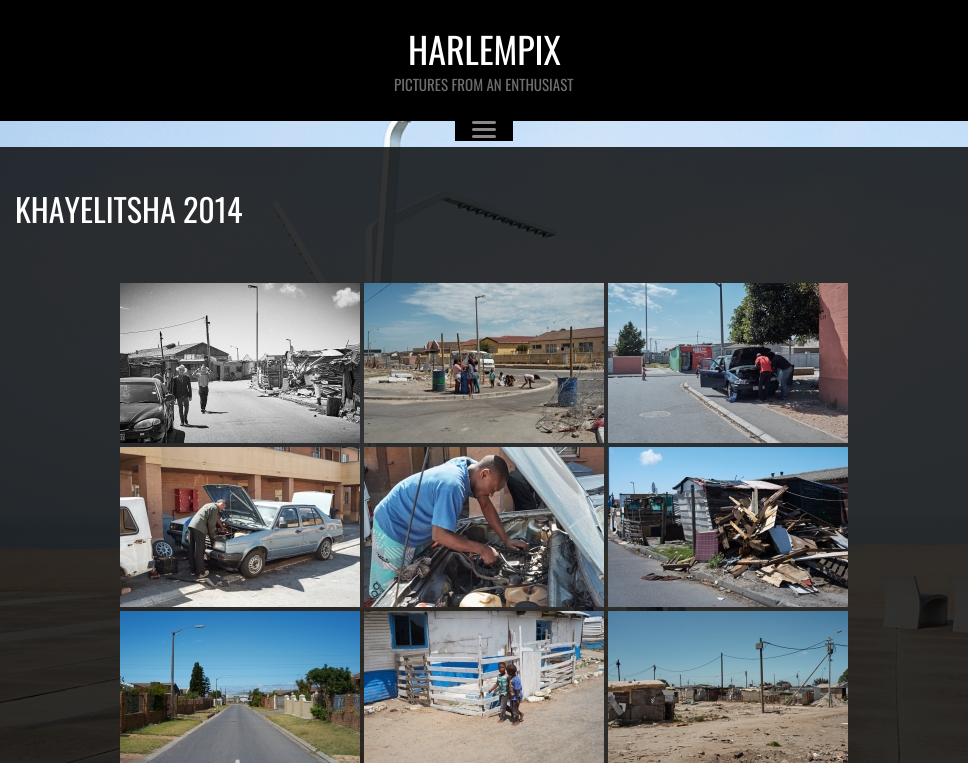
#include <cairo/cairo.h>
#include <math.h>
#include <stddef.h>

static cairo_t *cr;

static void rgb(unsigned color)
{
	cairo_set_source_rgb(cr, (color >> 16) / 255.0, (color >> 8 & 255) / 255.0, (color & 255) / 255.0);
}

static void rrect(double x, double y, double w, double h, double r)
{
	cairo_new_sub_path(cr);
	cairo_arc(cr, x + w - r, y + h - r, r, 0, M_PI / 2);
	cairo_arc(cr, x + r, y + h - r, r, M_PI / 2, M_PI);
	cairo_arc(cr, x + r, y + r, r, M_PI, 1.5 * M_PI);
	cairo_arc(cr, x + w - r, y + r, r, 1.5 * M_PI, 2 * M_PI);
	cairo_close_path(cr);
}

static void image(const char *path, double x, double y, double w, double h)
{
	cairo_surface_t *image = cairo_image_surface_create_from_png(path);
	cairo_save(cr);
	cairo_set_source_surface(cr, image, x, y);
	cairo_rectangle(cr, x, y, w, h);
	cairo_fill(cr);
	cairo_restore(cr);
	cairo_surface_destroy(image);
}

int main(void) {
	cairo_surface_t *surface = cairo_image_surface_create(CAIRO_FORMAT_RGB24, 968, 763);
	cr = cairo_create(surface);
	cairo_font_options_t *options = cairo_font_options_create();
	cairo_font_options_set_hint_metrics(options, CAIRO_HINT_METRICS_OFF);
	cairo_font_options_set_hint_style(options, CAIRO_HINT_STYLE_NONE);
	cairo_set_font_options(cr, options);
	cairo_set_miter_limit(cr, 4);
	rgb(0xffffff);
	cairo_paint(cr);
	image("img/1.png", 0, 121, 968, 642);
	rgb(0x000000);
	cairo_rectangle(cr, 0, 0, 968, 121);
	cairo_fill(cr);
	cairo_rectangle(cr, 455, 121, 58, 20);
	cairo_fill(cr);
	rgb(0x888888);
	rrect(472, 121, 24, 3, 1.5);
	cairo_fill(cr);
	rrect(472, 128, 24, 3, 1.5);
	cairo_fill(cr);
	rrect(472, 135, 24, 3, 1.5);
	cairo_fill(cr);
	cairo_set_source_rgba(cr, 0, 0, 0, 0.8);
	cairo_rectangle(cr, 0, 147, 968, 20);
	cairo_fill(cr);
	cairo_rectangle(cr, 0, 167, 968, 596);
	cairo_fill(cr);
	image("img/2.png", 120, 283, 240, 160);
	image("img/3.png", 364, 283, 240, 160);
	image("img/4.png", 608, 283, 240, 160);
	image("img/5.png", 120, 447, 240, 160);
	image("img/6.png", 364, 447, 240, 160);
	image("img/7.png", 608, 447, 240, 160);
	image("img/8.png", 120, 611, 240, 152);
	image("img/9.png", 364, 611, 240, 152);
	image("img/10.png", 608, 611, 240, 152);
	cairo_select_font_face(cr, "Oswald", CAIRO_FONT_SLANT_NORMAL, CAIRO_FONT_WEIGHT_NORMAL);
	cairo_set_font_size(cr, 36);
	rgb(0xffffff);
	cairo_move_to(cr, 408, 65);
	cairo_show_text(cr, "HARLEMPIX");
	cairo_set_font_size(cr, 15);
	rgb(0x6e6e6e);
	cairo_move_to(cr, 394, 91);
	cairo_show_text(cr, "PICTURES FROM AN ENTHUSIAST");
	cairo_set_font_size(cr, 32);
	rgb(0xffffff);
	cairo_move_to(cr, 15, 223);
	cairo_show_text(cr, "KHAYELITSHA 2014");
	cairo_surface_write_to_png(surface, "page.png");
	cairo_font_options_destroy(options);
	cairo_destroy(cr);
	cairo_surface_destroy(surface);
	return 0;
}
